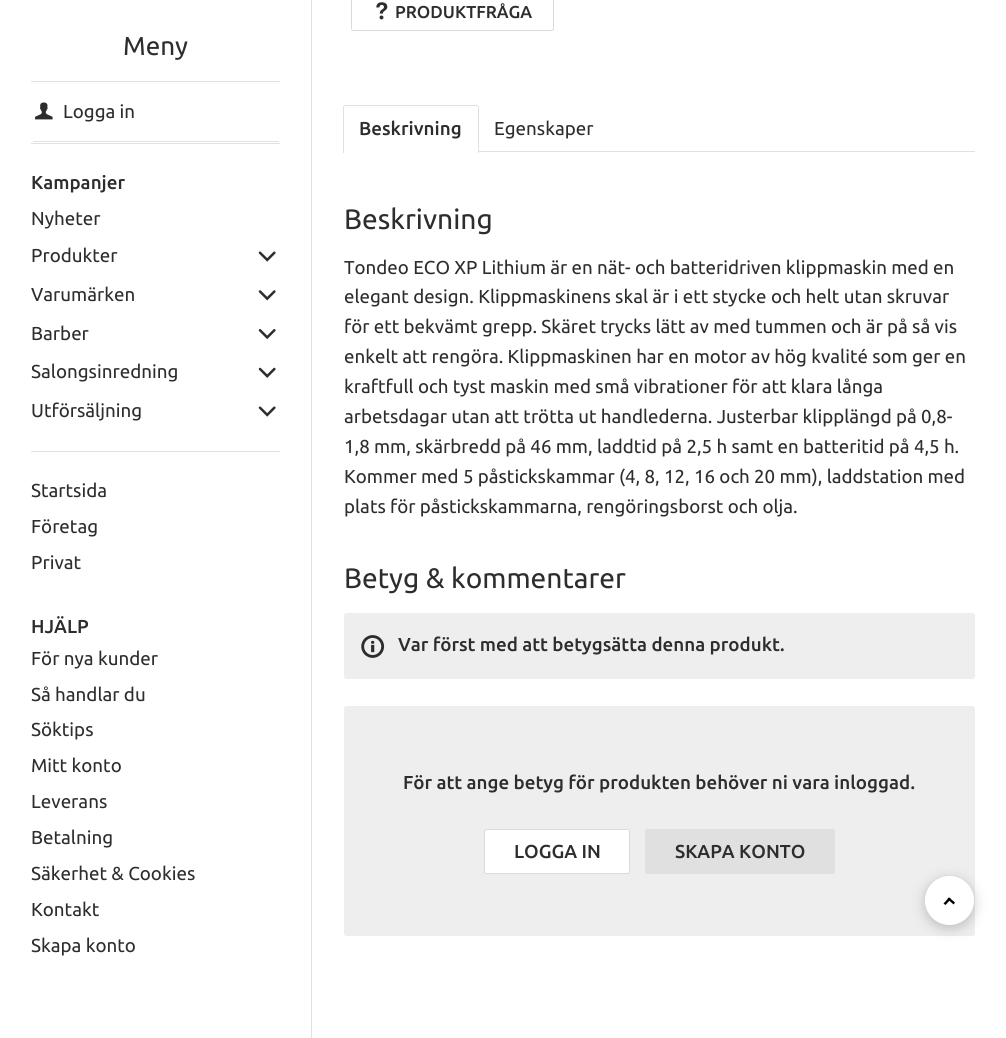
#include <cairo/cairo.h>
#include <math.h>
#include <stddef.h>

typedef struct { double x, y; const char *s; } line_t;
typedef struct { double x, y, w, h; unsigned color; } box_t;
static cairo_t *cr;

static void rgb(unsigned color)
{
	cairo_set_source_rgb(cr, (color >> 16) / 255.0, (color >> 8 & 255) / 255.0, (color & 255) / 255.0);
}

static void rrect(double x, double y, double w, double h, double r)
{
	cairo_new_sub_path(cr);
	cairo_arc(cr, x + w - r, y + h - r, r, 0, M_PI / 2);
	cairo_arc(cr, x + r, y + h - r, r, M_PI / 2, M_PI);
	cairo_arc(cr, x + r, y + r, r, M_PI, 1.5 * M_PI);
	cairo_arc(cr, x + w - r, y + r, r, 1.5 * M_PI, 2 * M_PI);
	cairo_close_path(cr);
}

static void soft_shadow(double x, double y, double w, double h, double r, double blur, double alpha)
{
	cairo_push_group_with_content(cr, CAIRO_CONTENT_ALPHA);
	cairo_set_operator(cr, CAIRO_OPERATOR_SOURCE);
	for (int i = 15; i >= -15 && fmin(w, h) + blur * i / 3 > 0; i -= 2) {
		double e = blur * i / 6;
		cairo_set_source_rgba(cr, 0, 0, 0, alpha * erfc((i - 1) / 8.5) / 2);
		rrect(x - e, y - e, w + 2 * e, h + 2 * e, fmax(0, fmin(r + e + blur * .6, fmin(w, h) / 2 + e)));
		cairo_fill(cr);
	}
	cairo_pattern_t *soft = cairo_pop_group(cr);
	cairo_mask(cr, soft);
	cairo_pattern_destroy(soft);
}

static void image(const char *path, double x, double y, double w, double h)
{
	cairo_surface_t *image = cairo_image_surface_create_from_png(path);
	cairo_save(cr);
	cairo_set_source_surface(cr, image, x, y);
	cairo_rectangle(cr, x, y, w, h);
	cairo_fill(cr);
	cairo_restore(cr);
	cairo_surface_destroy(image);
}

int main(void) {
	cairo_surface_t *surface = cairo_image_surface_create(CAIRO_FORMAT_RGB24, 1006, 1038);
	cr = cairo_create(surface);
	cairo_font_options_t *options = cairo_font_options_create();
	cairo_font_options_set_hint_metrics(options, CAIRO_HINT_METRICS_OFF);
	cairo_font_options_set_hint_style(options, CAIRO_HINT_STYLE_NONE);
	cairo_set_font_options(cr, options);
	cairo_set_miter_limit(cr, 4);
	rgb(0xffffff);
	cairo_paint(cr);
	{
		static const box_t items[] = {
			{311, 0, 1, 1038, 0xe1e1e1},
			{31, 81, 249, 1, 0xe1e1e1},
			{33, 141, 246, 1, 0xe1e1e1},
		};
		for (size_t i = 0; i < sizeof items / sizeof *items; i++) {
			rgb(items[i].color);
			cairo_rectangle(cr, items[i].x, items[i].y, items[i].w, items[i].h);
			cairo_fill(cr);
		}
	}
	image("img/1.png", 35, 102, 18, 18);
	cairo_rectangle(cr, 31, 143, 249, 1);
	cairo_fill(cr);
	image("img/2.png", 258, 251, 18, 11);
	image("img/3.png", 258, 290, 18, 11);
	image("img/4.png", 258, 329, 18, 11);
	image("img/5.png", 258, 367, 18, 11);
	image("img/2.png", 258, 406, 18, 11);
	cairo_rectangle(cr, 31, 451, 249, 1);
	cairo_fill(cr);
	rrect(351.5, -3.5, 202, 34, 2);
	rgb(0xdadada);
	cairo_set_line_width(cr, 1);
	cairo_stroke(cr);
	image("img/6.png", 376, 2, 12, 18);
	{
		static const box_t items[] = {
			{479, 151, 496, 1, 0xe1e1e1},
			{344, 105, 134, 1, 0xe1e1e1},
			{478, 106, 1, 47, 0xe1e1e1},
			{343, 106, 1, 47, 0xe1e1e1},
		};
		for (size_t i = 0; i < sizeof items / sizeof *items; i++) {
			rgb(items[i].color);
			cairo_rectangle(cr, items[i].x, items[i].y, items[i].w, items[i].h);
			cairo_fill(cr);
		}
	}
	rgb(0xeeeeee);
	rrect(344, 613, 631, 66, 2.5);
	cairo_fill(cr);
	image("img/7.png", 361, 635, 24, 23);
	rrect(344, 706, 631, 230, 2.5);
	cairo_fill(cr);
	rgb(0xffffff);
	rrect(484, 829, 146, 45, 2.5);
	cairo_fill(cr);
	rrect(484.5, 829.5, 145, 44, 2);
	cairo_set_source_rgba(cr, 0.667, 0.667, 0.667, 0.43);
	cairo_stroke(cr);
	rgb(0xe0e0e0);
	rrect(645, 829, 190, 45, 2.5);
	cairo_fill(cr);
	rgb(0x111111);
	soft_shadow(924, 878, 51, 51, 25.5, 6, 0.2);
	rgb(0xffffff);
	cairo_arc(cr, 949.5, 900.5, 24.5, 0, 2 * M_PI);
	cairo_fill(cr);
	rgb(0x000000);
	cairo_new_path(cr);
	cairo_move_to(cr, 951, 899);
	cairo_line_to(cr, 945.5, 905);
	cairo_line_to(cr, 943.5, 903.5);
	cairo_line_to(cr, 949, 897.5);
	cairo_close_path(cr);
	cairo_fill(cr);
	cairo_new_path(cr);
	cairo_move_to(cr, 955, 902.5);
	cairo_line_to(cr, 953.5, 904.5);
	cairo_line_to(cr, 947.5, 899);
	cairo_line_to(cr, 949, 897.5);
	cairo_close_path(cr);
	cairo_fill(cr);
	cairo_select_font_face(cr, "Ubuntu", CAIRO_FONT_SLANT_NORMAL, CAIRO_FONT_WEIGHT_NORMAL);
	cairo_set_font_size(cr, 26);
	rgb(0x2d2d2d);
	cairo_move_to(cr, 123, 55);
	cairo_show_text(cr, "Meny");
	cairo_set_font_size(cr, 18.75);
	cairo_move_to(cr, 63, 118);
	cairo_show_text(cr, "Logga in");
	cairo_select_font_face(cr, "Ubuntu Medium", CAIRO_FONT_SLANT_NORMAL, CAIRO_FONT_WEIGHT_NORMAL);
	cairo_move_to(cr, 31, 189);
	cairo_show_text(cr, "Kampanjer");
	cairo_select_font_face(cr, "Ubuntu", CAIRO_FONT_SLANT_NORMAL, CAIRO_FONT_WEIGHT_NORMAL);
	{
		static const line_t items[] = {
			{31, 225, "Nyheter"},
			{31, 262, "Produkter"},
			{31, 301, "Varumärken"},
			{31, 340, "Barber"},
			{31, 378, "Salongsinredning"},
			{31, 417, "Utförsäljning"},
			{31, 497, "Startsida"},
			{31, 533, "Företag"},
			{31, 569, "Privat"},
		};
		for (size_t i = 0; i < sizeof items / sizeof *items; i++) {
			cairo_move_to(cr, items[i].x, items[i].y);
			cairo_show_text(cr, items[i].s);
		}
	}
	cairo_select_font_face(cr, "Ubuntu Medium", CAIRO_FONT_SLANT_NORMAL, CAIRO_FONT_WEIGHT_NORMAL);
	cairo_move_to(cr, 31, 633);
	cairo_show_text(cr, "HJÄLP");
	cairo_select_font_face(cr, "Ubuntu", CAIRO_FONT_SLANT_NORMAL, CAIRO_FONT_WEIGHT_NORMAL);
	{
		static const line_t items[] = {
			{31, 665, "För nya kunder"},
			{31, 701, "Så handlar du"},
			{31, 736, "Söktips"},
			{31, 772, "Mitt konto"},
			{31, 808, "Leverans"},
			{31, 844, "Betalning"},
			{31, 880, "Säkerhet & Cookies"},
			{31, 916, "Kontakt"},
			{31, 952, "Skapa konto"},
		};
		for (size_t i = 0; i < sizeof items / sizeof *items; i++) {
			cairo_move_to(cr, items[i].x, items[i].y);
			cairo_show_text(cr, items[i].s);
		}
	}
	cairo_select_font_face(cr, "Ubuntu Medium", CAIRO_FONT_SLANT_NORMAL, CAIRO_FONT_WEIGHT_NORMAL);
	cairo_set_font_size(cr, 17.25);
	cairo_move_to(cr, 395, 18);
	cairo_show_text(cr, "PRODUKTFRÅGA");
	cairo_set_font_size(cr, 18.75);
	cairo_move_to(cr, 359, 135);
	cairo_show_text(cr, "Beskrivning");
	cairo_select_font_face(cr, "Ubuntu", CAIRO_FONT_SLANT_NORMAL, CAIRO_FONT_WEIGHT_NORMAL);
	cairo_move_to(cr, 494, 135);
	cairo_show_text(cr, "Egenskaper");
	cairo_set_font_size(cr, 28.1);
	cairo_move_to(cr, 344, 229);
	cairo_show_text(cr, "Beskrivning");
	cairo_set_font_size(cr, 18.7);
	{
		static const line_t items[] = {
			{344, 274, "Tondeo ECO XP Lithium är en nät- och batteridriven klippmaskin med en"},
			{344, 303, "elegant design. Klippmaskinens skal är i ett stycke och helt utan skruvar"},
			{344, 333, "för ett bekvämt grepp. Skäret trycks lätt av med tummen och är på så vis"},
			{344, 363, "enkelt att rengöra. Klippmaskinen har en motor av hög kvalité som ger en"},
			{344, 393, "kraftfull och tyst maskin med små vibrationer för att klara långa"},
			{344, 423, "arbetsdagar utan att trötta ut handlederna. Justerbar klipplängd på 0,8-"},
			{344, 453, "1,8 mm, skärbredd på 46 mm, laddtid på 2,5 h samt en batteritid på 4,5 h."},
			{344, 483, "Kommer med 5 påstickskammar (4, 8, 12, 16 och 20 mm), laddstation med"},
			{344, 513, "plats för påstickskammarna, rengöringsborst och olja."},
		};
		for (size_t i = 0; i < sizeof items / sizeof *items; i++) {
			cairo_move_to(cr, items[i].x, items[i].y);
			cairo_show_text(cr, items[i].s);
		}
	}
	cairo_set_font_size(cr, 28.1);
	cairo_move_to(cr, 344, 588);
	cairo_show_text(cr, "Betyg & kommentarer");
	cairo_select_font_face(cr, "Ubuntu Medium", CAIRO_FONT_SLANT_NORMAL, CAIRO_FONT_WEIGHT_NORMAL);
	cairo_set_font_size(cr, 18.75);
	{
		static const line_t items[] = {
			{398, 651, "Var först med att betygsätta denna produkt."},
			{403, 789, "För att ange betyg för produkten behöver ni vara inloggad."},
			{514, 858, "LOGGA IN"},
			{675, 858, "SKAPA KONTO"},
		};
		for (size_t i = 0; i < sizeof items / sizeof *items; i++) {
			cairo_move_to(cr, items[i].x, items[i].y);
			cairo_show_text(cr, items[i].s);
		}
	}
	cairo_surface_write_to_png(surface, "page.png");
	cairo_font_options_destroy(options);
	cairo_destroy(cr);
	cairo_surface_destroy(surface);
	return 0;
}
